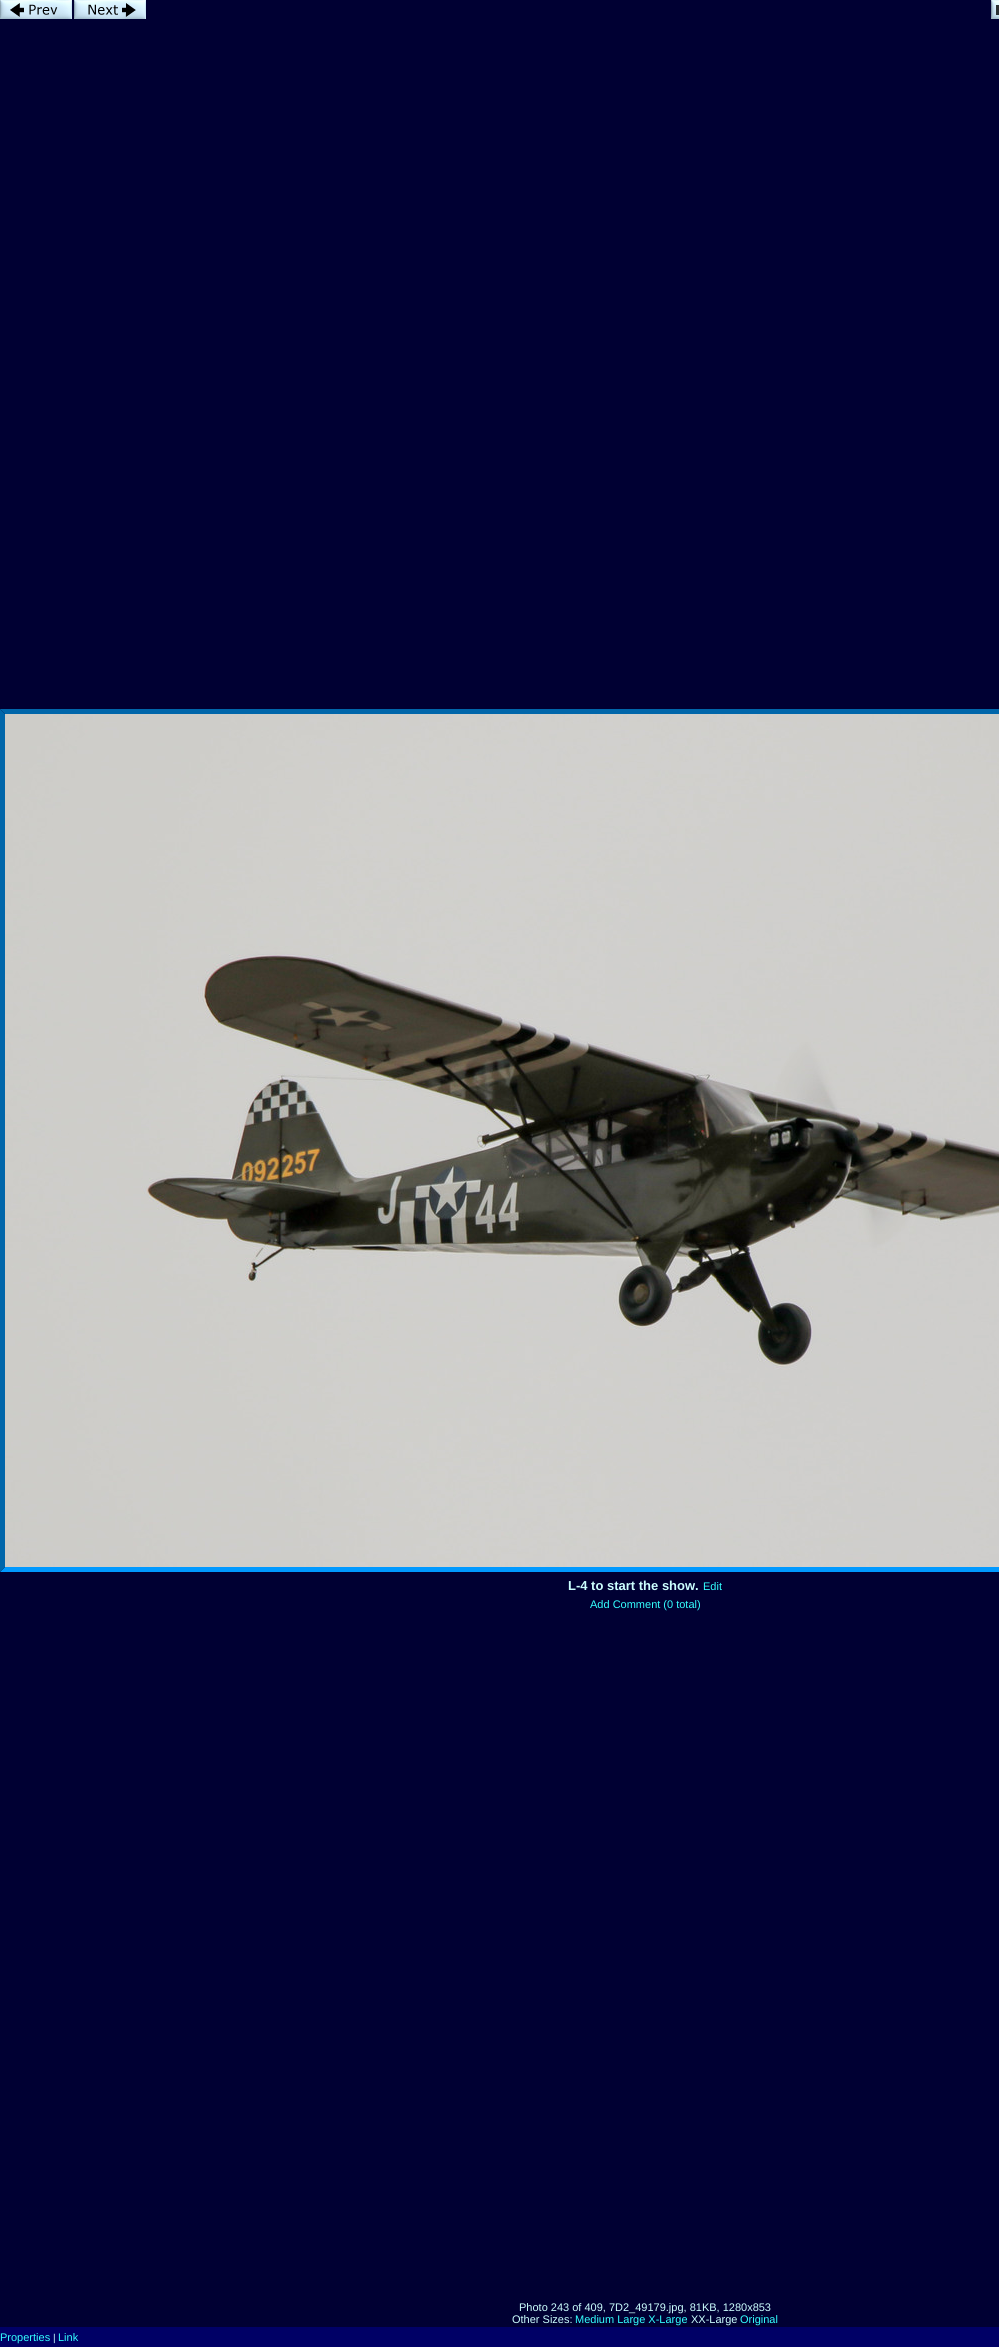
#include <cairo/cairo.h>
#include <math.h>
#include <stddef.h>

static cairo_t *cr;

static void rgb(unsigned color)
{
	cairo_set_source_rgb(cr, (color >> 16) / 255.0, (color >> 8 & 255) / 255.0, (color & 255) / 255.0);
}

static void image(const char *path, double x, double y, double w, double h)
{
	cairo_surface_t *image = cairo_image_surface_create_from_png(path);
	cairo_save(cr);
	cairo_set_source_surface(cr, image, x, y);
	cairo_rectangle(cr, x, y, w, h);
	cairo_fill(cr);
	cairo_restore(cr);
	cairo_surface_destroy(image);
}

int main(void) {
	cairo_surface_t *surface = cairo_image_surface_create(CAIRO_FORMAT_RGB24, 999, 2347);
	cr = cairo_create(surface);
	cairo_font_options_t *options = cairo_font_options_create();
	cairo_font_options_set_hint_metrics(options, CAIRO_HINT_METRICS_OFF);
	cairo_font_options_set_hint_style(options, CAIRO_HINT_STYLE_NONE);
	cairo_set_font_options(cr, options);
	cairo_set_miter_limit(cr, 4);
	rgb(0x000033);
	cairo_paint(cr);
	image("img/1.png", 0, 0, 72, 19);
	image("img/2.png", 74, 0, 72, 19);
	image("img/3.png", 991, 0, 8, 19);
	rgb(0x0066aa);
	cairo_new_path(cr);
	cairo_move_to(cr, 0, 709);
	cairo_line_to(cr, 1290, 709);
	cairo_line_to(cr, 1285, 714);
	cairo_line_to(cr, 5, 714);
	cairo_close_path(cr);
	cairo_fill(cr);
	rgb(0x0099ff);
	cairo_new_path(cr);
	cairo_move_to(cr, 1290, 1572);
	cairo_line_to(cr, 0, 1572);
	cairo_line_to(cr, 5, 1567);
	cairo_line_to(cr, 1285, 1567);
	cairo_close_path(cr);
	cairo_fill(cr);
	rgb(0x0066aa);
	cairo_new_path(cr);
	cairo_move_to(cr, 0, 1572);
	cairo_line_to(cr, 0, 709);
	cairo_line_to(cr, 5, 714);
	cairo_line_to(cr, 5, 1567);
	cairo_close_path(cr);
	cairo_fill(cr);
	image("img/4.png", 5, 714, 994, 853);
	rgb(0x000066);
	cairo_rectangle(cr, 0, 2327, 999, 20);
	cairo_fill(cr);
	cairo_select_font_face(cr, "Liberation Sans", CAIRO_FONT_SLANT_NORMAL, CAIRO_FONT_WEIGHT_BOLD);
	cairo_set_font_size(cr, 13);
	rgb(0xccffff);
	cairo_move_to(cr, 568, 1590);
	cairo_show_text(cr, "L-4 to start the show.");
	cairo_select_font_face(cr, "Liberation Sans", CAIRO_FONT_SLANT_NORMAL, CAIRO_FONT_WEIGHT_NORMAL);
	cairo_set_font_size(cr, 11);
	rgb(0x33ffff);
	cairo_move_to(cr, 703, 1590);
	cairo_show_text(cr, "Edit");
	cairo_move_to(cr, 590, 1608);
	cairo_show_text(cr, "Add Comment (0 total)");
	rgb(0xccffff);
	cairo_move_to(cr, 519, 2311);
	cairo_show_text(cr, "Photo 243 of 409, 7D2_49179.jpg, 81KB, 1280x853");
	cairo_move_to(cr, 512, 2323);
	cairo_show_text(cr, "Other Sizes:");
	rgb(0x33ffff);
	cairo_move_to(cr, 575, 2323);
	cairo_show_text(cr, "Medium Large X-Large");
	rgb(0xccffff);
	cairo_move_to(cr, 691, 2323);
	cairo_show_text(cr, "XX-Large");
	rgb(0x33ffff);
	cairo_move_to(cr, 740, 2323);
	cairo_show_text(cr, "Original");
	cairo_move_to(cr, 0, 2341);
	cairo_show_text(cr, "Properties");
	cairo_set_font_size(cr, 10);
	rgb(0xccffff);
	cairo_move_to(cr, 53, 2341);
	cairo_show_text(cr, "|");
	cairo_set_font_size(cr, 11);
	rgb(0x33ffff);
	cairo_move_to(cr, 58, 2341);
	cairo_show_text(cr, "Link");
	cairo_surface_write_to_png(surface, "page.png");
	cairo_font_options_destroy(options);
	cairo_destroy(cr);
	cairo_surface_destroy(surface);
	return 0;
}
